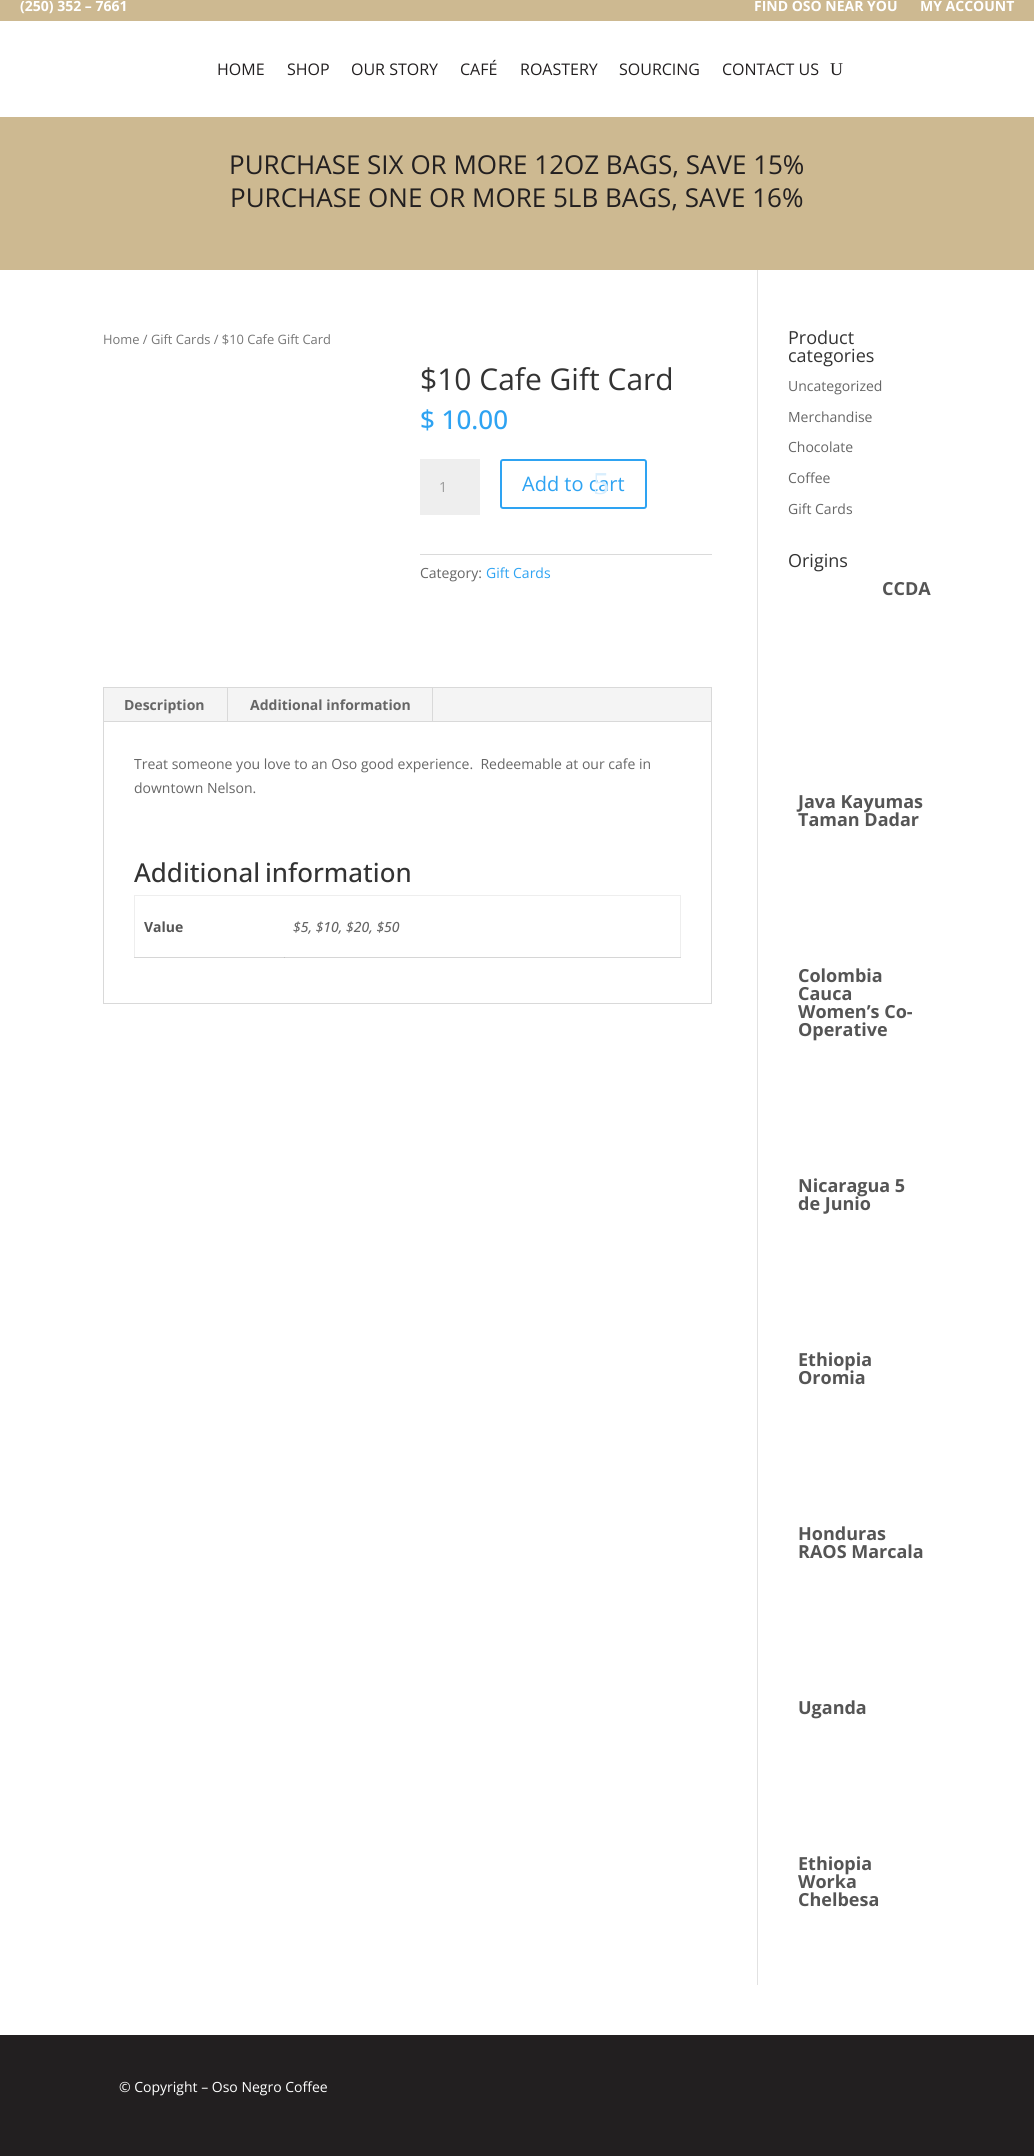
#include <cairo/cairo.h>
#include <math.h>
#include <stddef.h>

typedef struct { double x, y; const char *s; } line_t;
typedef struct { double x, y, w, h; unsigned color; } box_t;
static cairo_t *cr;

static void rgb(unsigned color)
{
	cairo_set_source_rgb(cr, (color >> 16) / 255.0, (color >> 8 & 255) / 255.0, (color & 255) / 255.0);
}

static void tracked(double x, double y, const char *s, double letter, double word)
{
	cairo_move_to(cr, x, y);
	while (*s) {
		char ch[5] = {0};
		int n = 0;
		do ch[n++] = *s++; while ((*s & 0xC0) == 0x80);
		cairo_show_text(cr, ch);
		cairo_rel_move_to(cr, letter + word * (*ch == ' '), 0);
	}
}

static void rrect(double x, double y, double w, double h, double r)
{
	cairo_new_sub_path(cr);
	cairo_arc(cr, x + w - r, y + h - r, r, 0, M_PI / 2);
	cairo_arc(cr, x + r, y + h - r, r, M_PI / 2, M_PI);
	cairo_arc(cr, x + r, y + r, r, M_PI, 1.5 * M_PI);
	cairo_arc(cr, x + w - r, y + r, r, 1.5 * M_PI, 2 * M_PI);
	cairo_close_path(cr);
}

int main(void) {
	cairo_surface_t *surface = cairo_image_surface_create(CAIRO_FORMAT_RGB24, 1034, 2156);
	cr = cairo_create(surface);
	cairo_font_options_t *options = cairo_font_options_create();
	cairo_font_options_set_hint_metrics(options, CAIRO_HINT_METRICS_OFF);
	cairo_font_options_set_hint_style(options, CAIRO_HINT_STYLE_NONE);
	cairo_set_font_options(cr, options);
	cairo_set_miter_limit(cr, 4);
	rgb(0xffffff);
	cairo_paint(cr);
	{
		static const box_t items[] = {
			{0, 0, 1034, 21, 0xcdb991},
			{0, 117, 1034, 153, 0xcdb991},
			{757, 270, 1, 1715, 0xe2e2e2},
			{420, 459, 60, 56, 0xeeeeee},
		};
		for (size_t i = 0; i < sizeof items / sizeof *items; i++) {
			rgb(items[i].color);
			cairo_rectangle(cr, items[i].x, items[i].y, items[i].w, items[i].h);
			cairo_fill(cr);
		}
	}
	rrect(501, 460, 145, 48, 2);
	rgb(0x2ea3f2);
	cairo_stroke(cr);
	rgb(0xdadada);
	cairo_rectangle(cr, 420, 554, 292, 1);
	cairo_fill(cr);
	cairo_rectangle(cr, 103.5, 687.5, 608, 316);
	rgb(0xd9d9d9);
	cairo_set_line_width(cr, 1);
	cairo_stroke(cr);
	{
		static const box_t items[] = {
			{104, 688, 607, 33, 0xf4f4f4},
			{227, 688, 1, 34, 0xd9d9d9},
			{432, 688, 1, 34, 0xd9d9d9},
			{104, 721, 607, 1, 0xd9d9d9},
			{134, 895, 547, 1, 0xeeeeee},
			{680, 895, 1, 63, 0xeeeeee},
			{134, 957, 547, 1, 0xd6d6d6},
			{134, 895, 1, 63, 0xeeeeee},
			{134, 957, 1, 1, 0xd6d6d6},
			{284, 957, 1, 1, 0xc1c1c1},
			{0, 2035, 1034, 121, 0x221f20},
		};
		for (size_t i = 0; i < sizeof items / sizeof *items; i++) {
			rgb(items[i].color);
			cairo_rectangle(cr, items[i].x, items[i].y, items[i].w, items[i].h);
			cairo_fill(cr);
		}
	}
	cairo_select_font_face(cr, "Open Sans", CAIRO_FONT_SLANT_NORMAL, CAIRO_FONT_WEIGHT_BOLD);
	cairo_set_font_size(cr, 14);
	rgb(0xffffff);
	{
		static const line_t items[] = {
			{20, 11, "(250) 352 – 7661"},
			{754, 11, "FIND OSO NEAR YOU"},
			{920, 11, "MY ACCOUNT"},
		};
		for (size_t i = 0; i < sizeof items / sizeof *items; i++) {
			cairo_move_to(cr, items[i].x, items[i].y);
			cairo_show_text(cr, items[i].s);
		}
	}
	cairo_select_font_face(cr, "Open Sans", CAIRO_FONT_SLANT_NORMAL, CAIRO_FONT_WEIGHT_NORMAL);
	cairo_set_font_size(cr, 16);
	rgb(0x221f20);
	{
		static const line_t items[] = {
			{217, 75, "HOME"},
			{287, 75, "SHOP"},
			{351, 75, "OUR STORY"},
			{460, 75, "CAFÉ"},
			{520, 75, "ROASTERY"},
			{619, 75, "SOURCING"},
			{722, 75, "CONTACT US"},
		};
		for (size_t i = 0; i < sizeof items / sizeof *items; i++) {
			cairo_move_to(cr, items[i].x, items[i].y);
			cairo_show_text(cr, items[i].s);
		}
	}
	cairo_select_font_face(cr, "Liberation Serif", CAIRO_FONT_SLANT_NORMAL, CAIRO_FONT_WEIGHT_NORMAL);
	cairo_set_font_size(cr, 18);
	cairo_move_to(cr, 830, 75);
	cairo_show_text(cr, "U");
	cairo_select_font_face(cr, "Open Sans", CAIRO_FONT_SLANT_NORMAL, CAIRO_FONT_WEIGHT_NORMAL);
	cairo_set_font_size(cr, 26);
	cairo_move_to(cr, 229, 174);
	cairo_show_text(cr, "PURCHASE SIX OR MORE 12OZ BAGS, SAVE 15%");
	cairo_move_to(cr, 230, 207);
	cairo_show_text(cr, "PURCHASE ONE OR MORE 5LB BAGS, SAVE 16%");
	cairo_set_font_size(cr, 12.9);
	rgb(0x767676);
	cairo_move_to(cr, 103, 344);
	cairo_show_text(cr, "Home / Gift Cards / $10 Cafe Gift Card");
	cairo_set_font_size(cr, 30);
	rgb(0x333333);
	cairo_move_to(cr, 420, 390);
	cairo_show_text(cr, "$10 Cafe Gift Card");
	cairo_select_font_face(cr, "Open Sans Medium", CAIRO_FONT_SLANT_NORMAL, CAIRO_FONT_WEIGHT_NORMAL);
	cairo_set_font_size(cr, 26);
	rgb(0x2ea3f2);
	cairo_move_to(cr, 420, 429);
	cairo_show_text(cr, "$ 10.00");
	cairo_select_font_face(cr, "Open Sans", CAIRO_FONT_SLANT_NORMAL, CAIRO_FONT_WEIGHT_NORMAL);
	cairo_set_font_size(cr, 14);
	rgb(0x999999);
	cairo_move_to(cr, 439, 492);
	cairo_show_text(cr, "1");
	cairo_set_font_size(cr, 20);
	rgb(0x2ea3f2);
	cairo_move_to(cr, 522, 491);
	cairo_show_text(cr, "Add to cart");
	cairo_select_font_face(cr, "Liberation Serif", CAIRO_FONT_SLANT_NORMAL, CAIRO_FONT_WEIGHT_NORMAL);
	cairo_set_font_size(cr, 32);
	rgb(0xd9eefd);
	cairo_move_to(cr, 593, 494);
	cairo_show_text(cr, "5");
	cairo_select_font_face(cr, "Open Sans", CAIRO_FONT_SLANT_NORMAL, CAIRO_FONT_WEIGHT_NORMAL);
	cairo_set_font_size(cr, 14);
	rgb(0x666666);
	cairo_move_to(cr, 420, 578);
	cairo_show_text(cr, "Category:");
	rgb(0x2ea3f2);
	cairo_move_to(cr, 486, 578);
	cairo_show_text(cr, "Gift Cards");
	cairo_select_font_face(cr, "Open Sans", CAIRO_FONT_SLANT_NORMAL, CAIRO_FONT_WEIGHT_BOLD);
	rgb(0x666666);
	cairo_move_to(cr, 124, 710);
	cairo_show_text(cr, "Description");
	cairo_move_to(cr, 250, 710);
	cairo_show_text(cr, "Additional information");
	cairo_select_font_face(cr, "Open Sans", CAIRO_FONT_SLANT_NORMAL, CAIRO_FONT_WEIGHT_NORMAL);
	cairo_move_to(cr, 134, 769);
	cairo_show_text(cr, "Treat someone you love to an Oso good experience.  Redeemable at our cafe in");
	cairo_move_to(cr, 134, 793);
	cairo_show_text(cr, "downtown Nelson.");
	cairo_select_font_face(cr, "Open Sans Medium", CAIRO_FONT_SLANT_NORMAL, CAIRO_FONT_WEIGHT_NORMAL);
	cairo_set_font_size(cr, 26);
	rgb(0x333333);
	tracked(134, 882, "Additional information", 0, -2);
	cairo_select_font_face(cr, "Open Sans", CAIRO_FONT_SLANT_NORMAL, CAIRO_FONT_WEIGHT_BOLD);
	cairo_set_font_size(cr, 14);
	rgb(0x555555);
	cairo_move_to(cr, 144, 932);
	cairo_show_text(cr, "Value");
	cairo_select_font_face(cr, "Open Sans Medium", CAIRO_FONT_SLANT_ITALIC, CAIRO_FONT_WEIGHT_NORMAL);
	rgb(0x666666);
	cairo_move_to(cr, 293, 932);
	cairo_show_text(cr, "$5, $10, $20, $50");
	cairo_select_font_face(cr, "Open Sans", CAIRO_FONT_SLANT_NORMAL, CAIRO_FONT_WEIGHT_NORMAL);
	cairo_set_font_size(cr, 18);
	rgb(0x333333);
	cairo_move_to(cr, 788, 344);
	cairo_show_text(cr, "Product");
	cairo_move_to(cr, 788, 362);
	cairo_show_text(cr, "categories");
	cairo_set_font_size(cr, 14);
	rgb(0x666666);
	{
		static const line_t items[] = {
			{788, 391, "Uncategorized"},
			{788, 422, "Merchandise"},
			{788, 452, "Chocolate"},
			{788, 483, "Coffee"},
			{788, 514, "Gift Cards"},
		};
		for (size_t i = 0; i < sizeof items / sizeof *items; i++) {
			cairo_move_to(cr, items[i].x, items[i].y);
			cairo_show_text(cr, items[i].s);
		}
	}
	cairo_set_font_size(cr, 18);
	rgb(0x333333);
	cairo_move_to(cr, 788, 567);
	cairo_show_text(cr, "Origins");
	cairo_select_font_face(cr, "Open Sans", CAIRO_FONT_SLANT_NORMAL, CAIRO_FONT_WEIGHT_BOLD);
	rgb(0x555555);
	{
		static const line_t items[] = {
			{882, 595, "CCDA"},
			{798, 808, "Java Kayumas"},
			{798, 826, "Taman Dadar"},
			{798, 982, "Colombia"},
			{798, 1000, "Cauca"},
			{798, 1018, "Women’s Co-"},
			{798, 1036, "Operative"},
			{798, 1192, "Nicaragua 5"},
			{798, 1210, "de Junio"},
			{798, 1366, "Ethiopia"},
			{798, 1384, "Oromia"},
			{798, 1540, "Honduras"},
			{798, 1558, "RAOS Marcala"},
			{798, 1714, "Uganda"},
			{798, 1870, "Ethiopia"},
			{798, 1888, "Worka"},
			{798, 1906, "Chelbesa"},
		};
		for (size_t i = 0; i < sizeof items / sizeof *items; i++) {
			cairo_move_to(cr, items[i].x, items[i].y);
			cairo_show_text(cr, items[i].s);
		}
	}
	cairo_select_font_face(cr, "Open Sans", CAIRO_FONT_SLANT_NORMAL, CAIRO_FONT_WEIGHT_NORMAL);
	cairo_set_font_size(cr, 14);
	rgb(0xffffff);
	cairo_move_to(cr, 119, 2092);
	cairo_show_text(cr, "© Copyright – Oso Negro Coffee");
	cairo_surface_write_to_png(surface, "page.png");
	cairo_font_options_destroy(options);
	cairo_destroy(cr);
	cairo_surface_destroy(surface);
	return 0;
}
